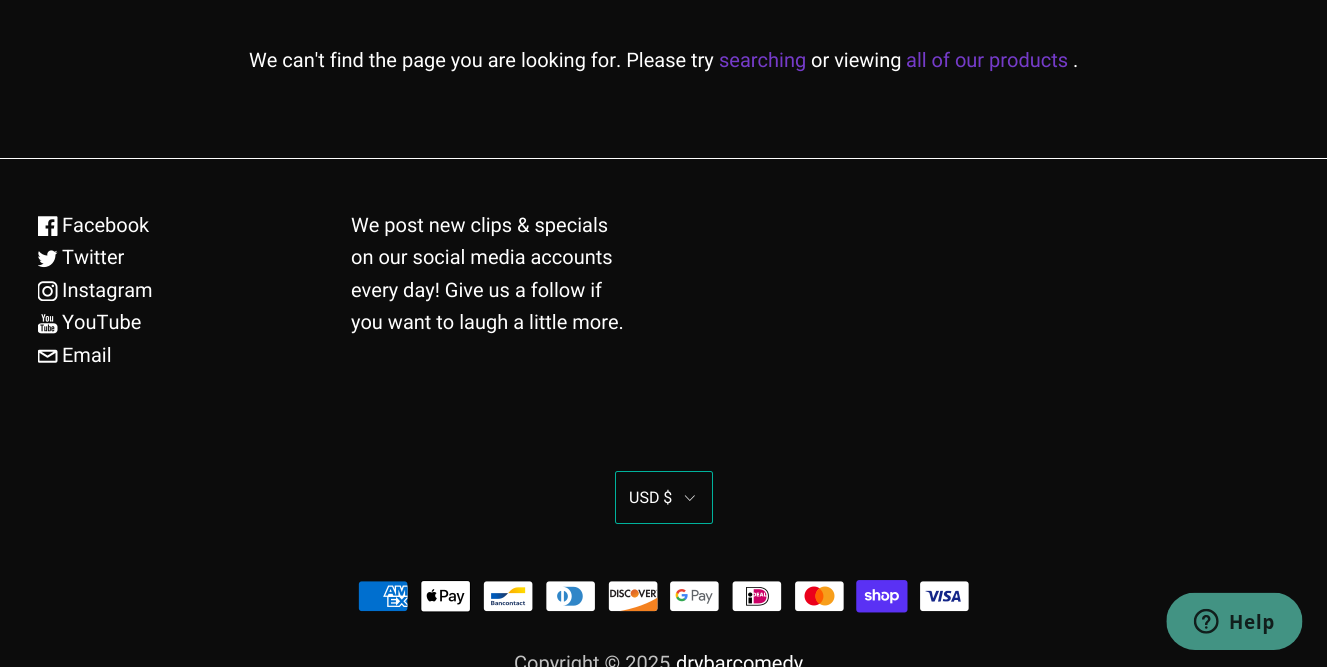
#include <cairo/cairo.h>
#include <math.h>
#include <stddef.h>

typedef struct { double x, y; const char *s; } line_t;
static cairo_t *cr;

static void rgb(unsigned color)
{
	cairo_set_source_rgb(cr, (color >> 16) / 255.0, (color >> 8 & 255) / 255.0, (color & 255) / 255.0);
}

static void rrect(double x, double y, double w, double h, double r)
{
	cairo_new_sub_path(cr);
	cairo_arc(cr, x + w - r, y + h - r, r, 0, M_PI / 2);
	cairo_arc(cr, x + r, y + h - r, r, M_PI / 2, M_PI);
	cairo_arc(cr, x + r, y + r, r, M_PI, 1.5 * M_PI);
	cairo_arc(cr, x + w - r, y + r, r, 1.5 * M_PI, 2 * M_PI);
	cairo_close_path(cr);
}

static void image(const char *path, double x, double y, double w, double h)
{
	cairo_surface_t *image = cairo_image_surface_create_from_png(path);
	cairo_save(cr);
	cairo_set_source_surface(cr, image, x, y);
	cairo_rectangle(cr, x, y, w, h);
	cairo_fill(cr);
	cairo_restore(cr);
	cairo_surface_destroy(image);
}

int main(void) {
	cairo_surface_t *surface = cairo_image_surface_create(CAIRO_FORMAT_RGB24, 1327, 667);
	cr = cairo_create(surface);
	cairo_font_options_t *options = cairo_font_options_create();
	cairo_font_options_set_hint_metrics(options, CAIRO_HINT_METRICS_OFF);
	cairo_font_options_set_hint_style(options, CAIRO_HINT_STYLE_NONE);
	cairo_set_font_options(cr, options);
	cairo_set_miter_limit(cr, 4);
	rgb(0x0c0c0c);
	cairo_paint(cr);
	rgb(0xffffff);
	cairo_rectangle(cr, 0, 158, 1327, 1);
	cairo_fill(cr);
	image("img/1.png", 38, 216, 20, 20);
	image("img/2.png", 38, 250, 20, 18);
	image("img/3.png", 38, 281, 20, 20);
	image("img/4.png", 38, 314, 20, 20);
	image("img/5.png", 38, 349, 20, 14);
	rrect(615.5, 471.5, 97, 52, 2);
	rgb(0x00b29c);
	cairo_set_line_width(cr, 1);
	cairo_stroke(cr);
	image("img/6.png", 684, 495, 11, 6);
	image("img/7.png", 358, 581, 50, 31);
	image("img/8.png", 420, 580, 51, 33);
	image("img/9.png", 483, 581, 50, 31);
	image("img/10.png", 546, 581, 49, 31);
	image("img/11.png", 608, 581, 50, 31);
	image("img/12.png", 670, 581, 49, 31);
	image("img/13.png", 732, 581, 50, 31);
	image("img/14.png", 795, 581, 49, 31);
	image("img/15.png", 856, 580, 52, 33);
	image("img/16.png", 920, 581, 49, 31);
	image("img/17.png", 1166, 592, 137, 58);
	cairo_select_font_face(cr, "Roboto", CAIRO_FONT_SLANT_NORMAL, CAIRO_FONT_WEIGHT_NORMAL);
	cairo_set_font_size(cr, 20);
	rgb(0xffffff);
	cairo_move_to(cr, 249, 67);
	cairo_show_text(cr, "We can't find the page you are looking for. Please try");
	rgb(0x753bc9);
	cairo_move_to(cr, 719, 67);
	cairo_show_text(cr, "searching");
	rgb(0xffffff);
	cairo_move_to(cr, 811, 67);
	cairo_show_text(cr, "or viewing");
	rgb(0x753bc9);
	cairo_move_to(cr, 906, 67);
	cairo_show_text(cr, "all of our products");
	rgb(0xffffff);
	{
		static const line_t items[] = {
			{1073, 67, "."},
			{62, 232, "Facebook"},
			{62, 264, "Twitter"},
			{62, 297, "Instagram"},
			{62, 329, "YouTube"},
			{62, 362, "Email"},
			{351, 232, "We post new clips & specials"},
			{351, 264, "on our social media accounts"},
			{351, 297, "every day! Give us a follow if"},
			{351, 329, "you want to laugh a little more."},
		};
		for (size_t i = 0; i < sizeof items / sizeof *items; i++) {
			cairo_move_to(cr, items[i].x, items[i].y);
			cairo_show_text(cr, items[i].s);
		}
	}
	cairo_set_font_size(cr, 16);
	cairo_move_to(cr, 629, 503);
	cairo_show_text(cr, "USD $");
	cairo_set_font_size(cr, 20);
	rgb(0xc2c2c2);
	cairo_move_to(cr, 514, 670);
	cairo_show_text(cr, "Copyright © 2025");
	rgb(0xffffff);
	cairo_move_to(cr, 676, 670);
	cairo_show_text(cr, "drybarcomedy");
	cairo_surface_write_to_png(surface, "page.png");
	cairo_font_options_destroy(options);
	cairo_destroy(cr);
	cairo_surface_destroy(surface);
	return 0;
}
